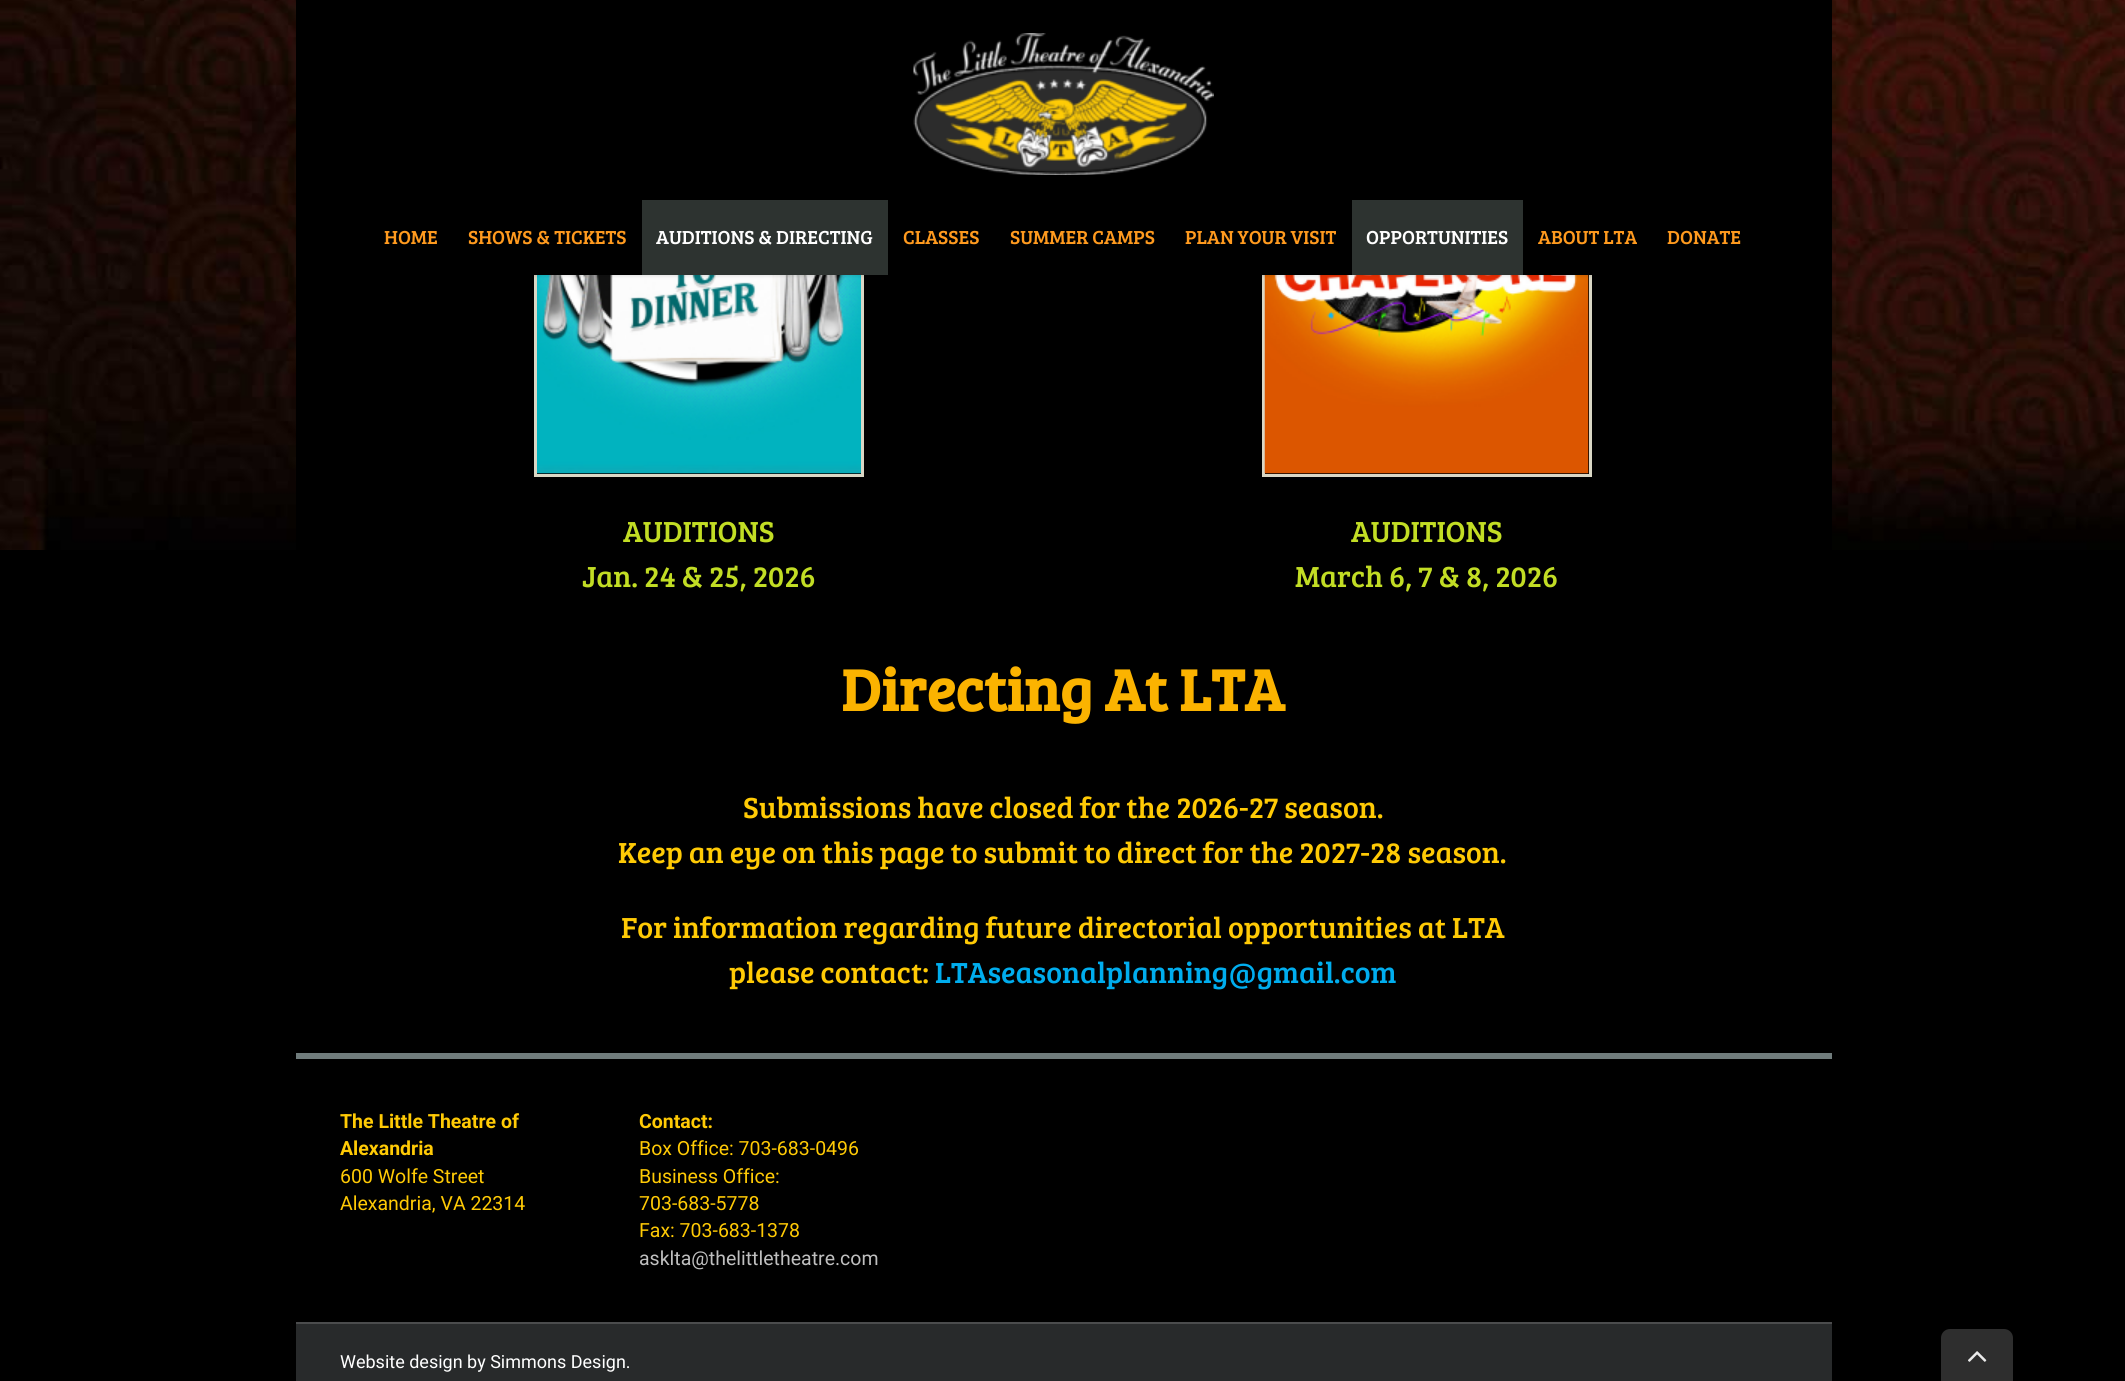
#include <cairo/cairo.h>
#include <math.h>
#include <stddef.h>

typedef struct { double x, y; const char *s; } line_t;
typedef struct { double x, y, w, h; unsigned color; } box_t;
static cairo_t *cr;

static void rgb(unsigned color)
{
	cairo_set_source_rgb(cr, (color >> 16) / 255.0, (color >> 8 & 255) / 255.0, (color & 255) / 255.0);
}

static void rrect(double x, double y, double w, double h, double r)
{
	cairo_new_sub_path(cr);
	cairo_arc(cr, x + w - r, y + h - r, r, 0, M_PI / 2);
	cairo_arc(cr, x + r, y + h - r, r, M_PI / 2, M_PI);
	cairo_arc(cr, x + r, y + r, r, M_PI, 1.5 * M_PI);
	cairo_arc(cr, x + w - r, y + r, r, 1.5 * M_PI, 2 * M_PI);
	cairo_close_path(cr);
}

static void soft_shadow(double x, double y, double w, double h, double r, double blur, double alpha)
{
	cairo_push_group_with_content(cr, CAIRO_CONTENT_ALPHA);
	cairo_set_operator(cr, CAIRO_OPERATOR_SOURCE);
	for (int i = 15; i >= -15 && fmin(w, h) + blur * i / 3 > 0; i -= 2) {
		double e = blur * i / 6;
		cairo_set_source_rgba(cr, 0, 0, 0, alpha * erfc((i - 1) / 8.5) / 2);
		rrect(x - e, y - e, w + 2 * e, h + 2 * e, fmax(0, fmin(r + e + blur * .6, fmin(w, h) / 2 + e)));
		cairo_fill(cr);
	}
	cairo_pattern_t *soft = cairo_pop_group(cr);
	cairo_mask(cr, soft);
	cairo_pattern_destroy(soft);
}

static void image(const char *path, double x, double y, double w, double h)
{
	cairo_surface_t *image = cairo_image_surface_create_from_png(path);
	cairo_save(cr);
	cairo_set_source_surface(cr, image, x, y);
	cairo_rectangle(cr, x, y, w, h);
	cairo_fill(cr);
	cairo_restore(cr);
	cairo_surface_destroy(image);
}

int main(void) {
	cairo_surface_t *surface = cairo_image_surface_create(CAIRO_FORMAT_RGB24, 2125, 1381);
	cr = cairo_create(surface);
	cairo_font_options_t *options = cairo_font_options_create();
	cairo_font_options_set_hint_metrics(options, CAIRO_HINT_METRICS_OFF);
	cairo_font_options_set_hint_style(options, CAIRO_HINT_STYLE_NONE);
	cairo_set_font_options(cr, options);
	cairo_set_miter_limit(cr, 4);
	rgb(0x000000);
	cairo_paint(cr);
	image("img/1.png", 0, 0, 2125, 550);
	rgb(0x000000);
	cairo_rectangle(cr, 296, 275, 1536, 275);
	cairo_fill(cr);
	cairo_rectangle(cr, 535.5, -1.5, 327, 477);
	rgb(0xdad7c5);
	cairo_set_line_width(cr, 3);
	cairo_stroke(cr);
	image("img/3.png", 537, 275, 324, 199);
	cairo_rectangle(cr, 1263.5, -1.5, 327, 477);
	cairo_stroke(cr);
	image("img/4.png", 1264, 275, 325, 199);
	rgb(0x000000);
	soft_shadow(300, 11, 1527, 265, 0, 2, 0.12);
	rgb(0x000000);
	cairo_rectangle(cr, 296, 0, 1536, 275);
	cairo_fill(cr);
	image("img/2.png", 913, 33, 301, 142);
	{
		static const box_t items[] = {
			{642, 200, 246, 75, 0x2d3330},
			{1352, 200, 171, 75, 0x2d3330},
			{296, 1053, 1536, 6, 0x707c7c},
			{296, 1324, 1536, 57, 0x282a2b},
			{296, 1322, 1536, 2, 0x4b4c4d},
		};
		for (size_t i = 0; i < sizeof items / sizeof *items; i++) {
			rgb(items[i].color);
			cairo_rectangle(cr, items[i].x, items[i].y, items[i].w, items[i].h);
			cairo_fill(cr);
		}
	}
	rgb(0x2e2e2e);
	cairo_new_path(cr);
	cairo_move_to(cr, 1950, 1329);
	cairo_line_to(cr, 2004, 1329);
	cairo_curve_to(cr, 2009, 1329, 2013, 1333, 2013, 1338);
	cairo_line_to(cr, 2013, 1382);
	cairo_line_to(cr, 1941, 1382);
	cairo_line_to(cr, 1941, 1338);
	cairo_curve_to(cr, 1941, 1333, 1945, 1329, 1950, 1329);
	cairo_close_path(cr);
	cairo_fill(cr);
	image("img/5.png", 1968, 1351, 19, 11);
	cairo_select_font_face(cr, "Bree Serif", CAIRO_FONT_SLANT_NORMAL, CAIRO_FONT_WEIGHT_NORMAL);
	cairo_set_font_size(cr, 19.5);
	rgb(0xff9a1e);
	cairo_move_to(cr, 384, 244);
	cairo_show_text(cr, "HOME");
	cairo_move_to(cr, 468, 244);
	cairo_show_text(cr, "SHOWS & TICKETS");
	rgb(0xffffff);
	cairo_move_to(cr, 656, 244);
	cairo_show_text(cr, "AUDITIONS & DIRECTING");
	rgb(0xff9a1e);
	{
		static const line_t items[] = {
			{903, 244, "CLASSES"},
			{1010, 244, "SUMMER CAMPS"},
			{1185, 244, "PLAN YOUR VISIT"},
		};
		for (size_t i = 0; i < sizeof items / sizeof *items; i++) {
			cairo_move_to(cr, items[i].x, items[i].y);
			cairo_show_text(cr, items[i].s);
		}
	}
	rgb(0xffffff);
	cairo_move_to(cr, 1366, 244);
	cairo_show_text(cr, "OPPORTUNITIES");
	rgb(0xff9a1e);
	cairo_move_to(cr, 1538, 244);
	cairo_show_text(cr, "ABOUT LTA");
	cairo_move_to(cr, 1667, 244);
	cairo_show_text(cr, "DONATE");
	cairo_set_font_size(cr, 30);
	rgb(0xc2dd24);
	{
		static const line_t items[] = {
			{623, 542, "AUDITIONS"},
			{582, 587, "Jan. 24 & 25, 2026"},
			{1351, 542, "AUDITIONS"},
			{1295, 587, "March 6, 7 & 8, 2026"},
		};
		for (size_t i = 0; i < sizeof items / sizeof *items; i++) {
			cairo_move_to(cr, items[i].x, items[i].y);
			cairo_show_text(cr, items[i].s);
		}
	}
	cairo_select_font_face(cr, "Bree Serif", CAIRO_FONT_SLANT_NORMAL, CAIRO_FONT_WEIGHT_BOLD);
	cairo_set_font_size(cr, 60);
	rgb(0xfbb300);
	cairo_move_to(cr, 841, 711);
	cairo_show_text(cr, "Directing At LTA");
	cairo_select_font_face(cr, "Bree Serif", CAIRO_FONT_SLANT_NORMAL, CAIRO_FONT_WEIGHT_NORMAL);
	cairo_set_font_size(cr, 30);
	rgb(0xffca05);
	{
		static const line_t items[] = {
			{743, 818, "Submissions have closed for the 2026-27 season."},
			{618, 863, "Keep an eye on this page to submit to direct for the 2027-28 season."},
			{621, 938, "For information regarding future directorial opportunities at LTA"},
			{729, 983, "please contact:"},
		};
		for (size_t i = 0; i < sizeof items / sizeof *items; i++) {
			cairo_move_to(cr, items[i].x, items[i].y);
			cairo_show_text(cr, items[i].s);
		}
	}
	rgb(0x00adee);
	cairo_move_to(cr, 935, 983);
	cairo_show_text(cr, "LTAseasonalplanning@gmail.com");
	cairo_select_font_face(cr, "Roboto", CAIRO_FONT_SLANT_NORMAL, CAIRO_FONT_WEIGHT_BOLD);
	cairo_set_font_size(cr, 19.5);
	rgb(0xffca05);
	cairo_move_to(cr, 340, 1128);
	cairo_show_text(cr, "The Little Theatre of");
	cairo_move_to(cr, 340, 1155);
	cairo_show_text(cr, "Alexandria");
	cairo_select_font_face(cr, "Roboto", CAIRO_FONT_SLANT_NORMAL, CAIRO_FONT_WEIGHT_NORMAL);
	cairo_move_to(cr, 340, 1183);
	cairo_show_text(cr, "600 Wolfe Street");
	cairo_move_to(cr, 340, 1210);
	cairo_show_text(cr, "Alexandria, VA 22314");
	cairo_select_font_face(cr, "Roboto", CAIRO_FONT_SLANT_NORMAL, CAIRO_FONT_WEIGHT_BOLD);
	cairo_move_to(cr, 639, 1128);
	cairo_show_text(cr, "Contact:");
	cairo_select_font_face(cr, "Roboto", CAIRO_FONT_SLANT_NORMAL, CAIRO_FONT_WEIGHT_NORMAL);
	{
		static const line_t items[] = {
			{639, 1155, "Box Office: 703-683-0496"},
			{639, 1183, "Business Office:"},
			{639, 1210, "703-683-5778"},
			{639, 1237, "Fax: 703-683-1378"},
		};
		for (size_t i = 0; i < sizeof items / sizeof *items; i++) {
			cairo_move_to(cr, items[i].x, items[i].y);
			cairo_show_text(cr, items[i].s);
		}
	}
	rgb(0xbfbfbf);
	cairo_move_to(cr, 639, 1265);
	cairo_show_text(cr, "asklta@thelittletheatre.com");
	cairo_set_font_size(cr, 18);
	rgb(0xffffff);
	cairo_move_to(cr, 340, 1368);
	cairo_show_text(cr, "Website design by Simmons Design.");
	cairo_surface_write_to_png(surface, "page.png");
	cairo_font_options_destroy(options);
	cairo_destroy(cr);
	cairo_surface_destroy(surface);
	return 0;
}
